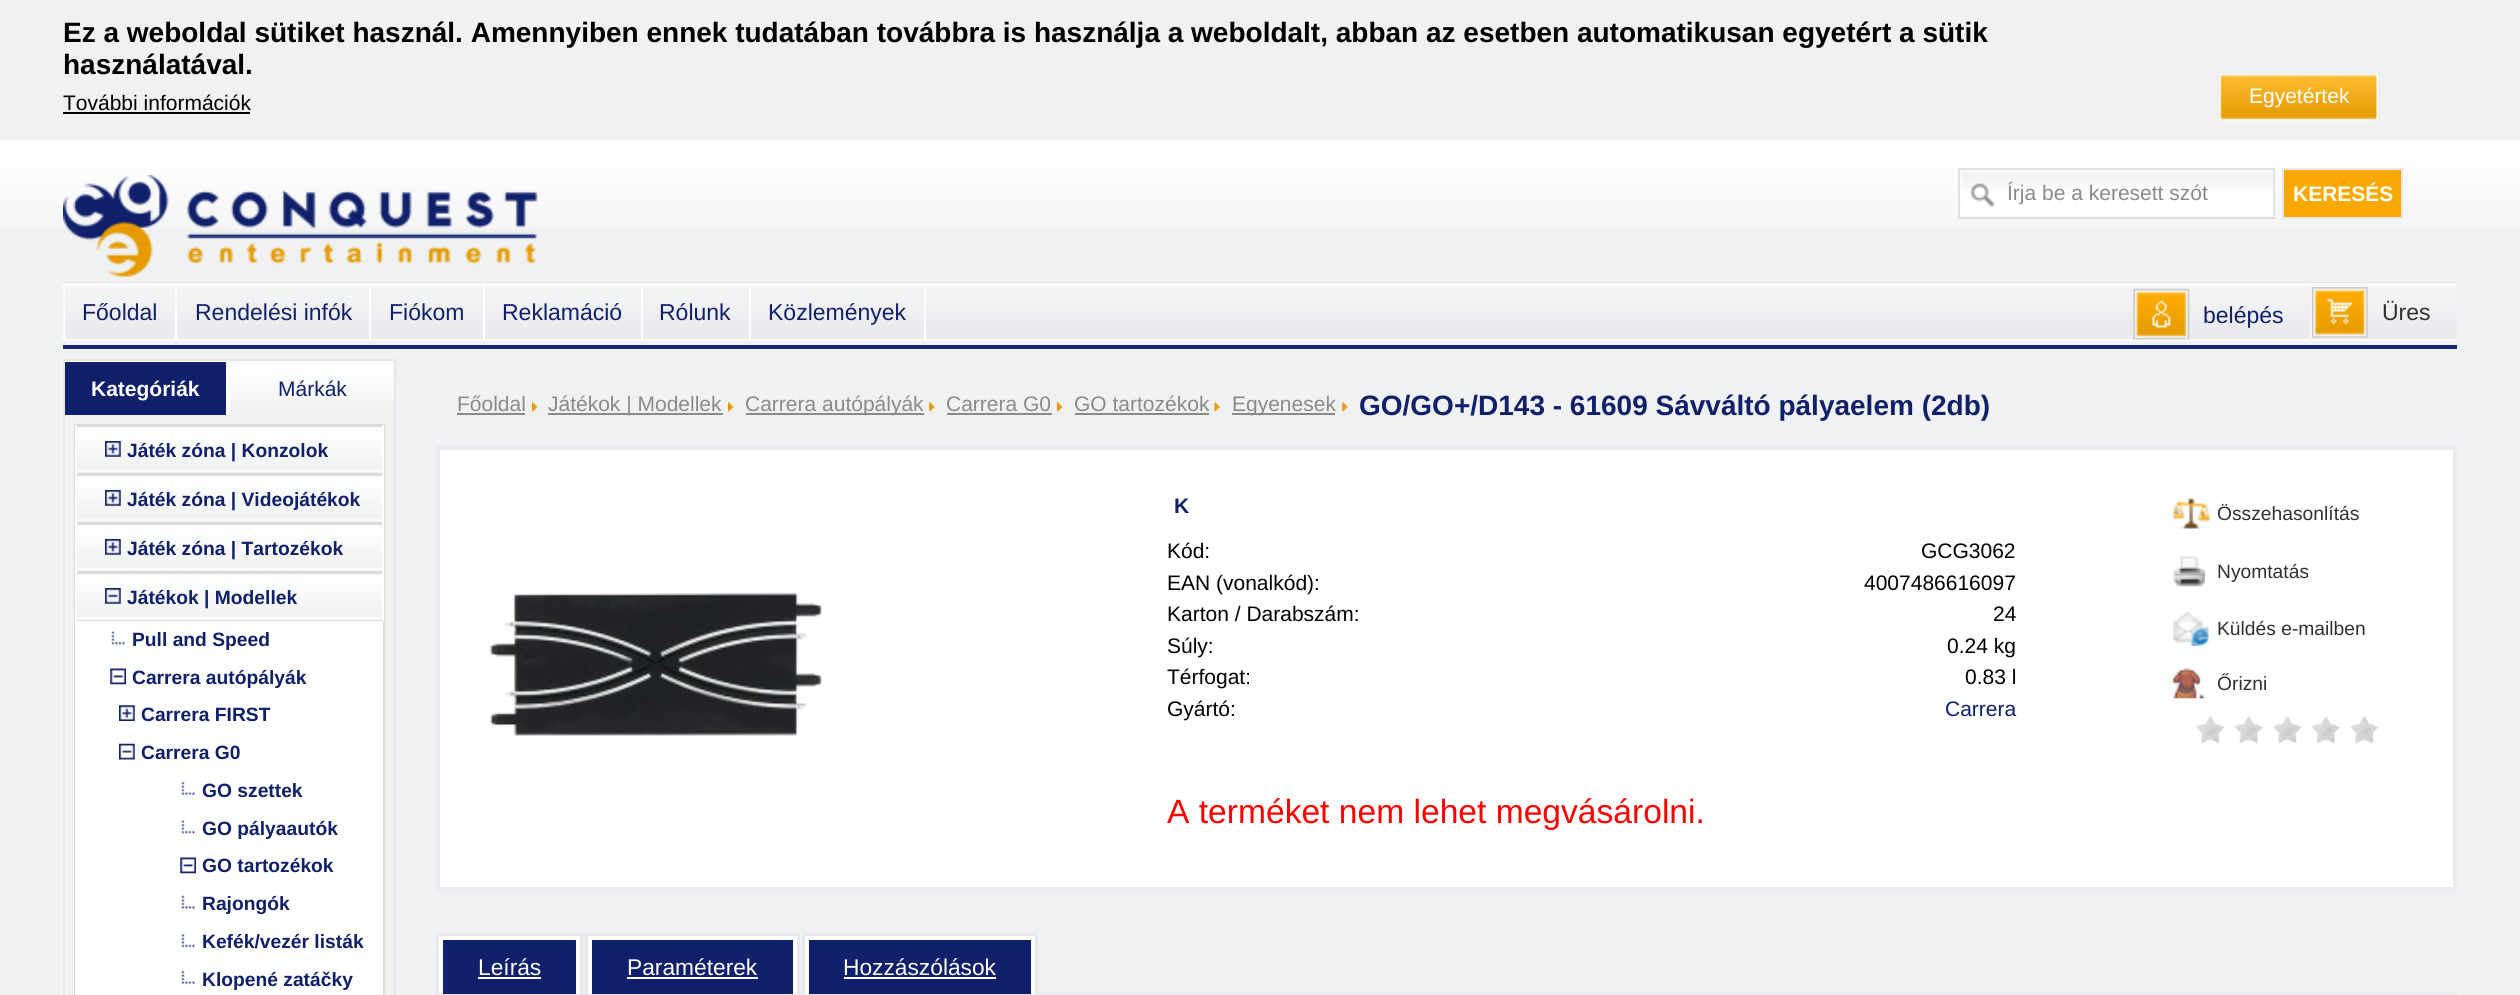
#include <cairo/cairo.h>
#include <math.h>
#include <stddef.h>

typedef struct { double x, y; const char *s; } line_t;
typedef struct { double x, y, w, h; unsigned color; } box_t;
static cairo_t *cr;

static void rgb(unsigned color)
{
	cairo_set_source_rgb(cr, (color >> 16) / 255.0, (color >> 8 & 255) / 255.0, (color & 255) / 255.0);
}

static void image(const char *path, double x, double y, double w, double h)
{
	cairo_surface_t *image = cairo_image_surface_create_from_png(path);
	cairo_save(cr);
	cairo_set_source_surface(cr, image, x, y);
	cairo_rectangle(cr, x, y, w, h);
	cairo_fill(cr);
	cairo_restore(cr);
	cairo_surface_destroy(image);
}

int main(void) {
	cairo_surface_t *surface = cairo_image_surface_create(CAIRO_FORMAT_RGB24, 2520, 995);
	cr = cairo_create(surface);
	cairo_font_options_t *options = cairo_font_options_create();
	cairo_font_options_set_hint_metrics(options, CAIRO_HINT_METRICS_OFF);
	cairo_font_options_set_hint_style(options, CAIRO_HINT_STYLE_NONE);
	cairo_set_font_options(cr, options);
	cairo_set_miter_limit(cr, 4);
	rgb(0xf0f1f2);
	cairo_paint(cr);
	image("img/1.png", 0, 140, 2520, 89);
	rgb(0x000000);
	cairo_rectangle(cr, 63, 112, 187, 2);
	cairo_fill(cr);
	rgb(0xffffff);
	cairo_rectangle(cr, 2217, 72, 163, 51);
	cairo_fill(cr);
	image("img/2.png", 2217, 72, 163, 51);
	rgb(0xe9eaec);
	cairo_rectangle(cr, 63, 282, 2394, 2);
	cairo_fill(cr);
	image("img/3.png", 63, 175, 475, 102);
	image("img/4.png", 1960, 171, 44, 46);
	cairo_rectangle(cr, 1959, 169, 315, 49);
	rgb(0xe0e0e0);
	cairo_stroke(cr);
	image("img/5.png", 2004, 171, 270, 46);
	rgb(0xf9a800);
	cairo_rectangle(cr, 2283, 169, 119, 49);
	cairo_fill_preserve(cr);
	rgb(0xe7e8eb);
	cairo_stroke(cr);
	image("img/6.png", 63, 283, 2394, 58);
	{
		static const box_t items[] = {
			{63, 345, 2394, 4, 0x18276f},
			{175, 285, 2, 55, 0xfdfdfd},
			{63, 285, 2, 55, 0xfdfdfd},
			{369, 285, 2, 55, 0xfdfdfd},
			{483, 285, 2, 55, 0xfdfdfd},
			{641, 285, 2, 55, 0xfdfdfd},
			{749, 285, 2, 55, 0xfdfdfd},
			{924, 285, 2, 55, 0xfdfdfd},
		};
		for (size_t i = 0; i < sizeof items / sizeof *items; i++) {
			rgb(items[i].color);
			cairo_rectangle(cr, items[i].x, items[i].y, items[i].w, items[i].h);
			cairo_fill(cr);
		}
	}
	image("img/7.png", 2133, 288, 57, 52);
	rgb(0xf3f4f5);
	cairo_rectangle(cr, 2310, 284, 2, 59);
	cairo_fill(cr);
	image("img/8.png", 2312, 287, 56, 51);
	cairo_rectangle(cr, 64, 360, 331, 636);
	rgb(0xe5e6e9);
	cairo_stroke(cr);
	{
		static const box_t items[] = {
			{65, 361, 329, 54, 0xffffff},
			{65, 362, 161, 53, 0x10206a},
			{231, 362, 163, 53, 0xf0f1f2},
		};
		for (size_t i = 0; i < sizeof items / sizeof *items; i++) {
			rgb(items[i].color);
			cairo_rectangle(cr, items[i].x, items[i].y, items[i].w, items[i].h);
			cairo_fill(cr);
		}
	}
	image("img/9.png", 231, 362, 163, 39);
	rgb(0xe7e8eb);
	cairo_rectangle(cr, 77, 472, 305, 148);
	cairo_fill(cr);
	cairo_rectangle(cr, 75, 425, 309, 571);
	rgb(0xdadbdf);
	cairo_stroke(cr);
	image("img/10.png", 77, 427, 305, 46);
	{
		static const box_t items[] = {
			{75, 426, 308, 1, 0xdadbdf},
			{382, 425, 2, 49, 0xffffff},
			{75, 473, 308, 3, 0xdadbdf},
			{75, 425, 2, 49, 0xffffff},
		};
		for (size_t i = 0; i < sizeof items / sizeof *items; i++) {
			rgb(items[i].color);
			cairo_rectangle(cr, items[i].x, items[i].y, items[i].w, items[i].h);
			cairo_fill(cr);
		}
	}
	image("img/11.png", 105, 441, 16, 16);
	image("img/10.png", 77, 476, 305, 46);
	{
		static const box_t items[] = {
			{382, 474, 2, 49, 0xffffff},
			{75, 522, 308, 3, 0xdadbdf},
			{75, 474, 2, 49, 0xffffff},
		};
		for (size_t i = 0; i < sizeof items / sizeof *items; i++) {
			rgb(items[i].color);
			cairo_rectangle(cr, items[i].x, items[i].y, items[i].w, items[i].h);
			cairo_fill(cr);
		}
	}
	image("img/11.png", 105, 490, 16, 16);
	image("img/10.png", 77, 525, 305, 46);
	{
		static const box_t items[] = {
			{382, 523, 2, 49, 0xffffff},
			{75, 571, 308, 3, 0xdadbdf},
			{75, 523, 2, 49, 0xffffff},
		};
		for (size_t i = 0; i < sizeof items / sizeof *items; i++) {
			rgb(items[i].color);
			cairo_rectangle(cr, items[i].x, items[i].y, items[i].w, items[i].h);
			cairo_fill(cr);
		}
	}
	image("img/11.png", 105, 539, 16, 16);
	image("img/10.png", 77, 574, 305, 46);
	{
		static const box_t items[] = {
			{382, 572, 2, 49, 0xffffff},
			{75, 620, 308, 1, 0xdadbdf},
			{75, 572, 2, 49, 0xffffff},
		};
		for (size_t i = 0; i < sizeof items / sizeof *items; i++) {
			rgb(items[i].color);
			cairo_rectangle(cr, items[i].x, items[i].y, items[i].w, items[i].h);
			cairo_fill(cr);
		}
	}
	image("img/12.png", 105, 588, 16, 16);
	cairo_rectangle(cr, 75, 621, 308, 374);
	cairo_fill(cr);
	image("img/13.png", 111, 631, 14, 14);
	image("img/14.png", 110, 668, 16, 17);
	image("img/15.png", 119, 705, 16, 16);
	image("img/16.png", 119, 743, 16, 17);
	image("img/17.png", 181, 781, 14, 14);
	image("img/13.png", 181, 820, 14, 14);
	image("img/14.png", 180, 857, 16, 17);
	image("img/18.png", 181, 895, 14, 14);
	image("img/19.png", 181, 934, 14, 14);
	image("img/17.png", 181, 970, 14, 14);
	rgb(0x8a8a8a);
	cairo_rectangle(cr, 457, 413, 68, 2);
	cairo_fill(cr);
	image("img/20.png", 532, 402, 6, 10);
	cairo_rectangle(cr, 548, 413, 175, 2);
	cairo_fill(cr);
	image("img/20.png", 728, 402, 6, 10);
	cairo_rectangle(cr, 746, 413, 178, 2);
	cairo_fill(cr);
	image("img/21.png", 929, 402, 6, 10);
	cairo_rectangle(cr, 947, 413, 105, 2);
	cairo_fill(cr);
	image("img/22.png", 1057, 402, 6, 10);
	cairo_rectangle(cr, 1075, 413, 134, 2);
	cairo_fill(cr);
	image("img/23.png", 1214, 402, 6, 10);
	cairo_rectangle(cr, 1232, 413, 103, 2);
	cairo_fill(cr);
	image("img/21.png", 1342, 402, 6, 10);
	rgb(0xffffff);
	cairo_rectangle(cr, 438, 448, 2017, 441);
	cairo_fill_preserve(cr);
	rgb(0xeaebee);
	cairo_set_line_width(cr, 4);
	cairo_stroke(cr);
	image("img/24.png", 485, 592, 338, 144);
	image("img/25.png", 2173, 498, 38, 31);
	image("img/26.png", 2173, 556, 32, 31);
	image("img/27.png", 2173, 612, 36, 34);
	image("img/28.png", 2171, 668, 35, 31);
	image("img/29.png", 2196, 716, 29, 28);
	image("img/30.png", 2234, 716, 29, 28);
	image("img/29.png", 2273, 716, 29, 28);
	image("img/31.png", 2311, 716, 29, 28);
	image("img/29.png", 2350, 716, 29, 28);
	cairo_rectangle(cr, 438, 994, 2017, 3);
	cairo_stroke(cr);
	cairo_rectangle(cr, 438, 935, 143, 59);
	rgb(0xe8e9ec);
	cairo_stroke(cr);
	{
		static const box_t items[] = {
			{443, 940, 133, 54, 0x10206a},
			{439, 936, 140, 4, 0xffffff},
			{576, 936, 4, 58, 0xffffff},
			{439, 936, 4, 58, 0xffffff},
			{478, 977, 63, 2, 0xffffff},
		};
		for (size_t i = 0; i < sizeof items / sizeof *items; i++) {
			rgb(items[i].color);
			cairo_rectangle(cr, items[i].x, items[i].y, items[i].w, items[i].h);
			cairo_fill(cr);
		}
	}
	cairo_rectangle(cr, 587, 935, 211, 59);
	rgb(0xe8e9ec);
	cairo_stroke(cr);
	{
		static const box_t items[] = {
			{592, 940, 201, 54, 0x10206a},
			{588, 936, 208, 4, 0xffffff},
			{793, 936, 4, 58, 0xffffff},
			{588, 936, 4, 58, 0xffffff},
			{627, 977, 131, 2, 0xffffff},
		};
		for (size_t i = 0; i < sizeof items / sizeof *items; i++) {
			rgb(items[i].color);
			cairo_rectangle(cr, items[i].x, items[i].y, items[i].w, items[i].h);
			cairo_fill(cr);
		}
	}
	cairo_rectangle(cr, 804, 935, 232, 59);
	rgb(0xe8e9ec);
	cairo_stroke(cr);
	{
		static const box_t items[] = {
			{809, 940, 222, 54, 0x10206a},
			{805, 936, 229, 4, 0xffffff},
			{1031, 936, 4, 58, 0xffffff},
			{805, 936, 4, 58, 0xffffff},
			{844, 977, 152, 2, 0xffffff},
		};
		for (size_t i = 0; i < sizeof items / sizeof *items; i++) {
			rgb(items[i].color);
			cairo_rectangle(cr, items[i].x, items[i].y, items[i].w, items[i].h);
			cairo_fill(cr);
		}
	}
	cairo_select_font_face(cr, "Liberation Sans", CAIRO_FONT_SLANT_NORMAL, CAIRO_FONT_WEIGHT_BOLD);
	cairo_set_font_size(cr, 28);
	rgb(0x000000);
	cairo_move_to(cr, 63, 42);
	cairo_show_text(cr, "Ez a weboldal sütiket használ. Amennyiben ennek tudatában továbbra is használja a weboldalt, abban az esetben automatikusan egyetért a sütik");
	cairo_move_to(cr, 63, 74);
	cairo_show_text(cr, "használatával.");
	cairo_select_font_face(cr, "Liberation Sans", CAIRO_FONT_SLANT_NORMAL, CAIRO_FONT_WEIGHT_NORMAL);
	cairo_set_font_size(cr, 21);
	cairo_move_to(cr, 63, 110);
	cairo_show_text(cr, "További információk");
	rgb(0xffffff);
	cairo_move_to(cr, 2249, 103);
	cairo_show_text(cr, "Egyetértek");
	rgb(0x8a8a8a);
	cairo_move_to(cr, 2007, 200);
	cairo_show_text(cr, "Írja be a keresett szót");
	cairo_select_font_face(cr, "Liberation Sans", CAIRO_FONT_SLANT_NORMAL, CAIRO_FONT_WEIGHT_BOLD);
	rgb(0xffffff);
	cairo_move_to(cr, 2293, 201);
	cairo_show_text(cr, "KERESÉS");
	cairo_select_font_face(cr, "Liberation Sans", CAIRO_FONT_SLANT_NORMAL, CAIRO_FONT_WEIGHT_NORMAL);
	cairo_set_font_size(cr, 23);
	rgb(0x10206a);
	{
		static const line_t items[] = {
			{82, 320, "Főoldal"},
			{195, 320, "Rendelési infók"},
			{389, 320, "Fiókom"},
			{502, 320, "Reklamáció"},
			{659, 320, "Rólunk"},
			{768, 320, "Közlemények"},
			{2203, 323, "belépés"},
		};
		for (size_t i = 0; i < sizeof items / sizeof *items; i++) {
			cairo_move_to(cr, items[i].x, items[i].y);
			cairo_show_text(cr, items[i].s);
		}
	}
	rgb(0x313131);
	cairo_move_to(cr, 2382, 320);
	cairo_show_text(cr, "Üres");
	cairo_select_font_face(cr, "Liberation Sans", CAIRO_FONT_SLANT_NORMAL, CAIRO_FONT_WEIGHT_BOLD);
	cairo_set_font_size(cr, 21);
	rgb(0xffffff);
	cairo_move_to(cr, 91, 396);
	cairo_show_text(cr, "Kategóriák");
	cairo_select_font_face(cr, "Liberation Sans", CAIRO_FONT_SLANT_NORMAL, CAIRO_FONT_WEIGHT_NORMAL);
	rgb(0x10206a);
	cairo_move_to(cr, 278, 396);
	cairo_show_text(cr, "Márkák");
	cairo_select_font_face(cr, "Liberation Sans", CAIRO_FONT_SLANT_NORMAL, CAIRO_FONT_WEIGHT_BOLD);
	cairo_set_font_size(cr, 19.25);
	{
		static const line_t items[] = {
			{127, 457, "Játék zóna | Konzolok"},
			{127, 506, "Játék zóna | Videojátékok"},
			{127, 555, "Játék zóna | Tartozékok"},
			{127, 604, "Játékok | Modellek"},
			{132, 646, "Pull and Speed"},
			{132, 684, "Carrera autópályák"},
			{141, 721, "Carrera FIRST"},
			{141, 759, "Carrera G0"},
			{202, 797, "GO szettek"},
			{202, 835, "GO pályaautók"},
			{202, 872, "GO tartozékok"},
			{202, 910, "Rajongók"},
			{202, 948, "Kefék/vezér listák"},
			{202, 986, "Klopené zatáčky"},
		};
		for (size_t i = 0; i < sizeof items / sizeof *items; i++) {
			cairo_move_to(cr, items[i].x, items[i].y);
			cairo_show_text(cr, items[i].s);
		}
	}
	cairo_select_font_face(cr, "Liberation Sans", CAIRO_FONT_SLANT_NORMAL, CAIRO_FONT_WEIGHT_NORMAL);
	cairo_set_font_size(cr, 21);
	rgb(0x8a8a8a);
	{
		static const line_t items[] = {
			{457, 411, "Főoldal"},
			{548, 411, "Játékok | Modellek"},
			{745, 411, "Carrera autópályák"},
			{946, 411, "Carrera G0"},
			{1074, 411, "GO tartozékok"},
			{1232, 411, "Egyenesek"},
		};
		for (size_t i = 0; i < sizeof items / sizeof *items; i++) {
			cairo_move_to(cr, items[i].x, items[i].y);
			cairo_show_text(cr, items[i].s);
		}
	}
	cairo_select_font_face(cr, "Liberation Sans", CAIRO_FONT_SLANT_NORMAL, CAIRO_FONT_WEIGHT_BOLD);
	cairo_set_font_size(cr, 28);
	rgb(0x10206a);
	cairo_move_to(cr, 1359, 415);
	cairo_show_text(cr, "GO/GO+/D143 - 61609 Sávváltó pályaelem (2db)");
	cairo_set_font_size(cr, 21);
	cairo_move_to(cr, 1174, 513);
	cairo_show_text(cr, "K");
	cairo_select_font_face(cr, "Liberation Sans", CAIRO_FONT_SLANT_NORMAL, CAIRO_FONT_WEIGHT_NORMAL);
	rgb(0x000000);
	{
		static const line_t items[] = {
			{1167, 558, "Kód:"},
			{1921, 558, "GCG3062"},
			{1167, 590, "EAN (vonalkód):"},
			{1864, 590, "4007486616097"},
			{1167, 621, "Karton / Darabszám:"},
			{1993, 621, "24"},
			{1167, 653, "Súly:"},
			{1947, 653, "0.24 kg"},
			{1167, 684, "Térfogat:"},
			{1965, 684, "0.83 l"},
			{1167, 716, "Gyártó:"},
		};
		for (size_t i = 0; i < sizeof items / sizeof *items; i++) {
			cairo_move_to(cr, items[i].x, items[i].y);
			cairo_show_text(cr, items[i].s);
		}
	}
	rgb(0x10206a);
	cairo_move_to(cr, 1945, 716);
	cairo_show_text(cr, "Carrera");
	cairo_set_font_size(cr, 33.6);
	rgb(0xff0000);
	cairo_move_to(cr, 1167, 823);
	cairo_show_text(cr, "A terméket nem lehet megvásárolni.");
	cairo_set_font_size(cr, 19.25);
	rgb(0x313131);
	{
		static const line_t items[] = {
			{2217, 520, "Összehasonlítás"},
			{2217, 578, "Nyomtatás"},
			{2217, 635, "Küldés e-mailben"},
			{2217, 690, "Őrizni"},
		};
		for (size_t i = 0; i < sizeof items / sizeof *items; i++) {
			cairo_move_to(cr, items[i].x, items[i].y);
			cairo_show_text(cr, items[i].s);
		}
	}
	cairo_set_font_size(cr, 22.75);
	rgb(0xffffff);
	{
		static const line_t items[] = {
			{478, 975, "Leírás"},
			{627, 975, "Paraméterek"},
			{843, 975, "Hozzászólások"},
		};
		for (size_t i = 0; i < sizeof items / sizeof *items; i++) {
			cairo_move_to(cr, items[i].x, items[i].y);
			cairo_show_text(cr, items[i].s);
		}
	}
	cairo_surface_write_to_png(surface, "page.png");
	cairo_font_options_destroy(options);
	cairo_destroy(cr);
	cairo_surface_destroy(surface);
	return 0;
}
